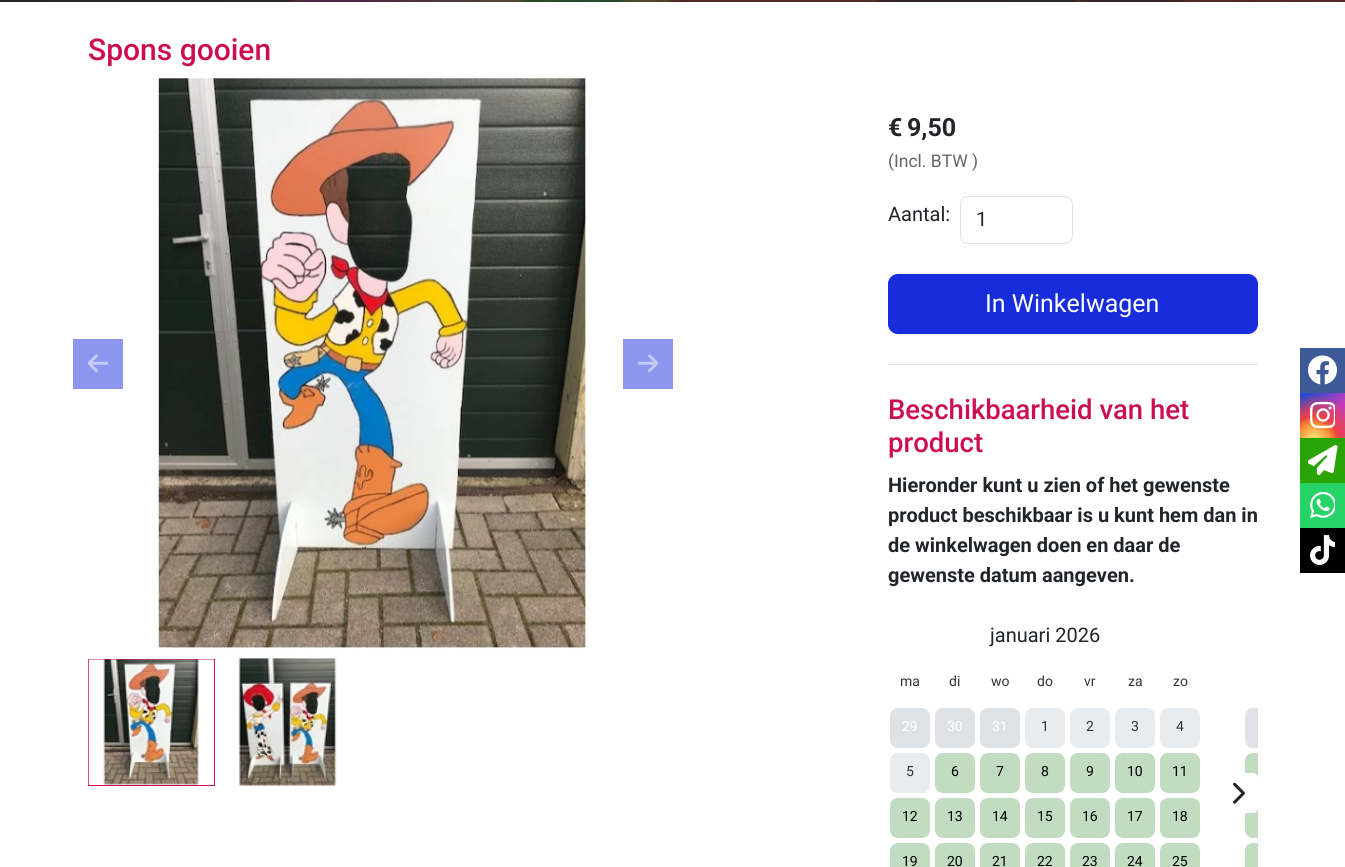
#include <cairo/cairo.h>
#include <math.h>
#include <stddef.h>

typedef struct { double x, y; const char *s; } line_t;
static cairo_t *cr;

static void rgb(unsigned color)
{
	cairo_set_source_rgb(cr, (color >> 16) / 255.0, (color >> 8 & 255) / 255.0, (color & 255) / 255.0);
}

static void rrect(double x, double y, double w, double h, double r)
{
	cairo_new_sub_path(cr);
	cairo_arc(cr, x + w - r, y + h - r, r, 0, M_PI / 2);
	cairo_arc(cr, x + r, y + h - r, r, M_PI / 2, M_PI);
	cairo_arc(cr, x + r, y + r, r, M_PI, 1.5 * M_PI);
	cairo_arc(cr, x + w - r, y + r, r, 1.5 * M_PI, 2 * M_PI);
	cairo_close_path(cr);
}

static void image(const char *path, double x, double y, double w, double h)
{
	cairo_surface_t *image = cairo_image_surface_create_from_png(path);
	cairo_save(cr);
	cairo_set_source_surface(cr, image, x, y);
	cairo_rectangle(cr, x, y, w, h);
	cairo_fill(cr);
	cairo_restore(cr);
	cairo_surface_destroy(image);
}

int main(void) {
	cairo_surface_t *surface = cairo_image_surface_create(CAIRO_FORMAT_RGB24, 1345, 867);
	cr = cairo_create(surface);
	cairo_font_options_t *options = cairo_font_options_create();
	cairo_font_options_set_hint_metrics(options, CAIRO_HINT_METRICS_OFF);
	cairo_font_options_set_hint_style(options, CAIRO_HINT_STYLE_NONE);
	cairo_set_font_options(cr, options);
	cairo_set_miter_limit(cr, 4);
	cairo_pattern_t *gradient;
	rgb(0xffffff);
	cairo_paint(cr);
	image("img/1.png", 0, 0, 1345, 2);
	rgb(0x8b96ee);
	cairo_rectangle(cr, 73, 339, 50, 50);
	cairo_fill(cr);
	image("img/2.png", 88, 354, 20, 19);
	image("img/3.png", 156, 78, 433, 571);
	cairo_rectangle(cr, 623, 339, 50, 50);
	cairo_fill(cr);
	image("img/4.png", 638, 354, 20, 19);
	cairo_rectangle(cr, 88.5, 659.5, 126, 126);
	rgb(0xcd0d52);
	cairo_set_line_width(cr, 1);
	cairo_stroke(cr);
	image("img/5.png", 88, 659, 126, 126);
	image("img/6.png", 238, 658, 99, 128);
	rrect(960.5, 196.5, 112, 47, 7.5);
	rgb(0xdee2e6);
	cairo_stroke(cr);
	rgb(0x172ddc);
	rrect(888.5, 274.5, 369, 59, 9.5);
	cairo_fill_preserve(cr);
	cairo_stroke(cr);
	rgb(0xdee2e6);
	cairo_rectangle(cr, 888, 364, 370, 1);
	cairo_fill(cr);
	rrect(890, 708, 40, 40, 8);
	cairo_fill(cr);
	rrect(935, 708, 40, 40, 8);
	cairo_fill(cr);
	rrect(980, 708, 40, 40, 8);
	cairo_fill(cr);
	rgb(0xe9ecef);
	rrect(1025, 708, 40, 40, 8);
	cairo_fill(cr);
	rrect(1070, 708, 40, 40, 8);
	cairo_fill(cr);
	rrect(1115, 708, 40, 40, 8);
	cairo_fill(cr);
	rrect(1160, 708, 40, 40, 8);
	cairo_fill(cr);
	rrect(890, 753, 40, 40, 8);
	cairo_fill(cr);
	rgb(0xc2dcc1);
	rrect(935, 753, 40, 40, 8);
	cairo_fill(cr);
	rrect(980, 753, 40, 40, 8);
	cairo_fill(cr);
	rrect(1025, 753, 40, 40, 8);
	cairo_fill(cr);
	rrect(1070, 753, 40, 40, 8);
	cairo_fill(cr);
	rrect(1115, 753, 40, 40, 8);
	cairo_fill(cr);
	rrect(1160, 753, 40, 40, 8);
	cairo_fill(cr);
	rrect(890, 798, 40, 40, 8);
	cairo_fill(cr);
	rrect(935, 798, 40, 40, 8);
	cairo_fill(cr);
	rrect(980, 798, 40, 40, 8);
	cairo_fill(cr);
	rrect(1025, 798, 40, 40, 8);
	cairo_fill(cr);
	rrect(1070, 798, 40, 40, 8);
	cairo_fill(cr);
	rrect(1115, 798, 40, 40, 8);
	cairo_fill(cr);
	rrect(1160, 798, 40, 40, 8);
	cairo_fill(cr);
	rrect(890, 843, 40, 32, 8);
	cairo_fill(cr);
	rrect(935, 843, 40, 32, 8);
	cairo_fill(cr);
	rrect(980, 843, 40, 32, 8);
	cairo_fill(cr);
	rrect(1025, 843, 40, 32, 8);
	cairo_fill(cr);
	rrect(1070, 843, 40, 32, 8);
	cairo_fill(cr);
	rrect(1115, 843, 40, 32, 8);
	cairo_fill(cr);
	rrect(1160, 843, 40, 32, 8);
	cairo_fill(cr);
	rgb(0xdee2e6);
	cairo_new_path(cr);
	cairo_move_to(cr, 1253, 708);
	cairo_line_to(cr, 1258, 708);
	cairo_line_to(cr, 1258, 748);
	cairo_line_to(cr, 1253, 748);
	cairo_curve_to(cr, 1248.5, 748, 1245, 744.5, 1245, 740);
	cairo_line_to(cr, 1245, 716);
	cairo_curve_to(cr, 1245, 711.5, 1248.5, 708, 1253, 708);
	cairo_close_path(cr);
	cairo_fill(cr);
	rgb(0xc2dcc1);
	cairo_new_path(cr);
	cairo_move_to(cr, 1253, 753);
	cairo_line_to(cr, 1258, 753);
	cairo_line_to(cr, 1258, 793);
	cairo_line_to(cr, 1253, 793);
	cairo_curve_to(cr, 1248.5, 793, 1245, 789.5, 1245, 785);
	cairo_line_to(cr, 1245, 761);
	cairo_curve_to(cr, 1245, 756.5, 1248.5, 753, 1253, 753);
	cairo_close_path(cr);
	cairo_fill(cr);
	cairo_new_path(cr);
	cairo_move_to(cr, 1253, 798);
	cairo_line_to(cr, 1258, 798);
	cairo_line_to(cr, 1258, 838);
	cairo_line_to(cr, 1253, 838);
	cairo_curve_to(cr, 1248.5, 838, 1245, 834.5, 1245, 830);
	cairo_line_to(cr, 1245, 806);
	cairo_curve_to(cr, 1245, 801.5, 1248.5, 798, 1253, 798);
	cairo_close_path(cr);
	cairo_fill(cr);
	cairo_new_path(cr);
	cairo_move_to(cr, 1253, 843);
	cairo_line_to(cr, 1258, 843);
	cairo_line_to(cr, 1258, 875);
	cairo_line_to(cr, 1253, 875);
	cairo_curve_to(cr, 1248.5, 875, 1245, 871.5, 1245, 867);
	cairo_line_to(cr, 1245, 851);
	cairo_curve_to(cr, 1245, 846.5, 1248.5, 843, 1253, 843);
	cairo_close_path(cr);
	cairo_fill(cr);
	rgb(0xffffff);
	rrect(1218, 773, 40, 40, 5);
	cairo_fill(cr);
	image("img/7.png", 1233, 782, 12, 22);
	rgb(0x3c5a96);
	cairo_rectangle(cr, 1300, 348, 45, 45);
	cairo_fill(cr);
	image("img/8.png", 1308, 355, 29, 30);
	gradient = cairo_pattern_create_linear(1300, 393, 1345, 438);
	cairo_pattern_add_color_stop_rgba(gradient, 0.12, 0.137, 0.294, 0.843, 1);
	cairo_pattern_add_color_stop_rgba(gradient, 0.58, 0.765, 0.235, 0.745, 1);
	cairo_set_source(cr, gradient);
	cairo_pattern_destroy(gradient);
	cairo_rectangle(cr, 1300, 393, 45, 45);
	cairo_fill(cr);
	gradient = cairo_pattern_create_radial(1314, 440, 0, 1314, 440, 57);
	cairo_pattern_add_color_stop_rgba(gradient, 0, 1, 0.882, 0.49, 1);
	cairo_pattern_add_color_stop_rgba(gradient, 0.1, 1, 0.804, 0.412, 1);
	cairo_pattern_add_color_stop_rgba(gradient, 0.28, 0.98, 0.569, 0.216, 1);
	cairo_pattern_add_color_stop_rgba(gradient, 0.42, 0.922, 0.255, 0.255, 1);
	cairo_pattern_add_color_stop_rgba(gradient, 0.82, 0.922, 0.255, 0.255, 0);
	cairo_set_source(cr, gradient);
	cairo_pattern_destroy(gradient);
	cairo_rectangle(cr, 1300, 394, 45, 44);
	cairo_fill(cr);
	image("img/9.png", 1310, 401, 25, 28);
	rgb(0x2aa404);
	cairo_rectangle(cr, 1300, 438, 45, 45);
	cairo_fill(cr);
	image("img/10.png", 1308, 445, 30, 30);
	rgb(0x25d366);
	cairo_rectangle(cr, 1300, 483, 45, 45);
	cairo_fill(cr);
	image("img/11.png", 1310, 491, 25, 27);
	rgb(0x000000);
	cairo_rectangle(cr, 1300, 528, 45, 45);
	cairo_fill(cr);
	image("img/12.png", 1310, 535, 25, 30);
	cairo_select_font_face(cr, "Roboto Medium", CAIRO_FONT_SLANT_NORMAL, CAIRO_FONT_WEIGHT_NORMAL);
	cairo_set_font_size(cr, 30);
	rgb(0xcd0d52);
	cairo_move_to(cr, 88, 60);
	cairo_show_text(cr, "Spons gooien");
	cairo_select_font_face(cr, "Roboto", CAIRO_FONT_SLANT_NORMAL, CAIRO_FONT_WEIGHT_BOLD);
	cairo_set_font_size(cr, 25);
	rgb(0x212529);
	cairo_move_to(cr, 888, 136);
	cairo_show_text(cr, "€");
	cairo_move_to(cr, 907, 136);
	cairo_show_text(cr, "9,50");
	cairo_select_font_face(cr, "Roboto", CAIRO_FONT_SLANT_NORMAL, CAIRO_FONT_WEIGHT_NORMAL);
	cairo_set_font_size(cr, 17.5);
	rgb(0x666666);
	cairo_move_to(cr, 888, 167);
	cairo_show_text(cr, "(Incl. BTW )");
	cairo_set_font_size(cr, 20);
	rgb(0x212529);
	cairo_move_to(cr, 888, 221);
	cairo_show_text(cr, "Aantal:");
	cairo_move_to(cr, 976, 226);
	cairo_show_text(cr, "1");
	cairo_set_font_size(cr, 25);
	rgb(0xffffff);
	cairo_move_to(cr, 985, 312);
	cairo_show_text(cr, "In Winkelwagen");
	cairo_select_font_face(cr, "Roboto Medium", CAIRO_FONT_SLANT_NORMAL, CAIRO_FONT_WEIGHT_NORMAL);
	cairo_set_font_size(cr, 27.5);
	rgb(0xcd0d52);
	cairo_move_to(cr, 888, 419);
	cairo_show_text(cr, "Beschikbaarheid van het");
	cairo_move_to(cr, 888, 452);
	cairo_show_text(cr, "product");
	cairo_select_font_face(cr, "Roboto", CAIRO_FONT_SLANT_NORMAL, CAIRO_FONT_WEIGHT_BOLD);
	cairo_set_font_size(cr, 20);
	rgb(0x212529);
	{
		static const line_t items[] = {
			{888, 492, "Hieronder kunt u zien of het gewenste"},
			{888, 522, "product beschikbaar is u kunt hem dan in"},
			{888, 552, "de winkelwagen doen en daar de"},
			{888, 582, "gewenste datum aangeven."},
		};
		for (size_t i = 0; i < sizeof items / sizeof *items; i++) {
			cairo_move_to(cr, items[i].x, items[i].y);
			cairo_show_text(cr, items[i].s);
		}
	}
	cairo_select_font_face(cr, "Roboto", CAIRO_FONT_SLANT_NORMAL, CAIRO_FONT_WEIGHT_NORMAL);
	cairo_move_to(cr, 990, 642);
	cairo_show_text(cr, "januari 2026");
	cairo_set_font_size(cr, 14);
	rgb(0x333333);
	{
		static const line_t items[] = {
			{900, 686, "ma"},
			{949, 686, "di"},
			{991, 686, "wo"},
			{1037, 686, "do"},
			{1084, 686, "vr"},
			{1128, 686, "za"},
			{1173, 686, "zo"},
		};
		for (size_t i = 0; i < sizeof items / sizeof *items; i++) {
			cairo_move_to(cr, items[i].x, items[i].y);
			cairo_show_text(cr, items[i].s);
		}
	}
	rgb(0xffffff);
	{
		static const line_t items[] = {
			{902, 731, "29"},
			{947, 731, "30"},
			{992, 731, "31"},
		};
		for (size_t i = 0; i < sizeof items / sizeof *items; i++) {
			cairo_move_to(cr, items[i].x, items[i].y);
			cairo_show_text(cr, items[i].s);
		}
	}
	rgb(0x333333);
	{
		static const line_t items[] = {
			{1041, 731, "1"},
			{1086, 731, "2"},
			{1131, 731, "3"},
			{1176, 731, "4"},
			{906, 776, "5"},
		};
		for (size_t i = 0; i < sizeof items / sizeof *items; i++) {
			cairo_move_to(cr, items[i].x, items[i].y);
			cairo_show_text(cr, items[i].s);
		}
	}
	rgb(0x000000);
	{
		static const line_t items[] = {
			{951, 776, "6"},
			{996, 776, "7"},
			{1041, 776, "8"},
			{1086, 776, "9"},
			{1127, 776, "10"},
			{1172, 776, "11"},
			{902, 821, "12"},
			{947, 821, "13"},
			{992, 821, "14"},
			{1037, 821, "15"},
			{1082, 821, "16"},
			{1127, 821, "17"},
			{1172, 821, "18"},
			{902, 866, "19"},
			{947, 866, "20"},
			{992, 866, "21"},
			{1037, 866, "22"},
			{1082, 866, "23"},
			{1127, 866, "24"},
			{1172, 866, "25"},
		};
		for (size_t i = 0; i < sizeof items / sizeof *items; i++) {
			cairo_move_to(cr, items[i].x, items[i].y);
			cairo_show_text(cr, items[i].s);
		}
	}
	cairo_surface_write_to_png(surface, "page.png");
	cairo_font_options_destroy(options);
	cairo_destroy(cr);
	cairo_surface_destroy(surface);
	return 0;
}
